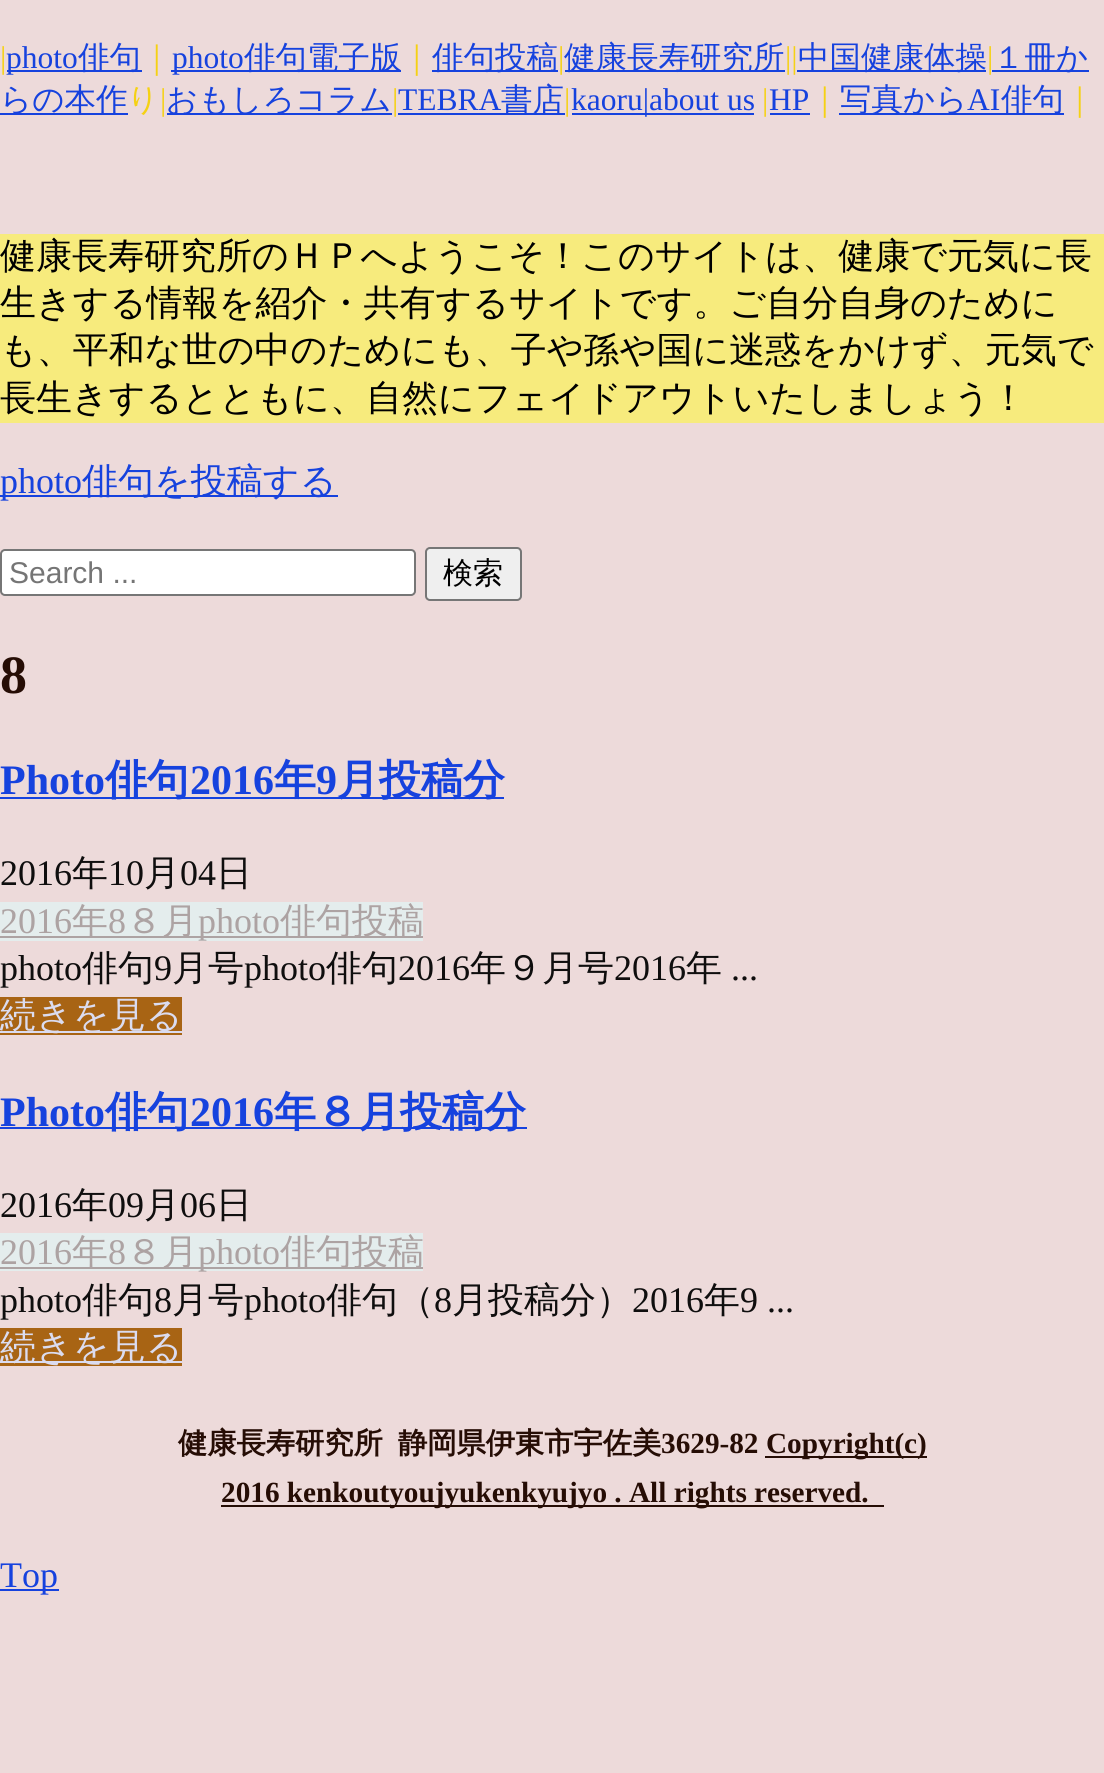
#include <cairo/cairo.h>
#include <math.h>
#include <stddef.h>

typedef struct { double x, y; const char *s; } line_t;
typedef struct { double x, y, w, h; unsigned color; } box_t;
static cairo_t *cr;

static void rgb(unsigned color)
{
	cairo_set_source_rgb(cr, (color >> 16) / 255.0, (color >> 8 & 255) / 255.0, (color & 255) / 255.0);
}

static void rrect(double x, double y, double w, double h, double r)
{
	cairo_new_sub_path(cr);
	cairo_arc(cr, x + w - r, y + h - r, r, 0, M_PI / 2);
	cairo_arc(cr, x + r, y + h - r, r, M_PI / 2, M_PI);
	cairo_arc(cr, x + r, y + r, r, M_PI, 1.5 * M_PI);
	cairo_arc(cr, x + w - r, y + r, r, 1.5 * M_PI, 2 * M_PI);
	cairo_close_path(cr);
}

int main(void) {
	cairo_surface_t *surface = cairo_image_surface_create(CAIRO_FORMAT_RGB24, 1104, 1773);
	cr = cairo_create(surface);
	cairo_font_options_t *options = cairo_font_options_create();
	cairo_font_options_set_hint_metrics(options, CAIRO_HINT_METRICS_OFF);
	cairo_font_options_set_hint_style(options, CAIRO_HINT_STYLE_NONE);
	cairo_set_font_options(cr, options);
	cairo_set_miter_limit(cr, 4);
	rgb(0xeddada);
	cairo_paint(cr);
	{
		static const box_t items[] = {
			{7, 70, 135, 2, 0x1642de},
			{171, 70, 230, 2, 0x1642de},
			{432, 70, 126, 2, 0x1642de},
			{565, 70, 220, 2, 0x1642de},
			{797, 70, 189, 2, 0x1642de},
			{992, 70, 97, 2, 0x1642de},
			{0, 113, 128, 2, 0x1642de},
			{167, 113, 225, 2, 0x1642de},
			{398, 113, 167, 2, 0x1642de},
			{572, 113, 182, 2, 0x1642de},
			{770, 113, 40, 2, 0x1642de},
			{839, 113, 225, 2, 0x1642de},
			{0, 234, 1104, 189, 0xf7eb7d},
			{0, 495, 338, 2, 0x1642de},
		};
		for (size_t i = 0; i < sizeof items / sizeof *items; i++) {
			rgb(items[i].color);
			cairo_rectangle(cr, items[i].x, items[i].y, items[i].w, items[i].h);
			cairo_fill(cr);
		}
	}
	rgb(0xffffff);
	rrect(1, 550, 414, 45, 4);
	cairo_fill_preserve(cr);
	rgb(0x767676);
	cairo_stroke(cr);
	rgb(0xefefef);
	rrect(426, 548, 95, 52, 4);
	cairo_fill_preserve(cr);
	rgb(0x767676);
	cairo_stroke(cr);
	{
		static const box_t items[] = {
			{0, 797, 504, 2, 0x1642de},
			{0, 902, 423, 39, 0xe4eded},
			{0, 936, 423, 2, 0xada3a3},
			{0, 997, 182, 38, 0xa86414},
			{0, 1031, 182, 2, 0xdbdcf0},
			{0, 1127, 527, 2, 0x1642de},
			{0, 1233, 423, 38, 0xe4eded},
			{0, 1267, 423, 2, 0xada3a3},
			{0, 1328, 182, 38, 0xa86414},
			{0, 1361, 182, 2, 0xdbdcf0},
			{765, 1456, 162, 2, 0x260d05},
			{221, 1505, 663, 2, 0x260d05},
			{0, 1589, 59, 2, 0x1642de},
		};
		for (size_t i = 0; i < sizeof items / sizeof *items; i++) {
			rgb(items[i].color);
			cairo_rectangle(cr, items[i].x, items[i].y, items[i].w, items[i].h);
			cairo_fill(cr);
		}
	}
	cairo_select_font_face(cr, "Liberation Serif", CAIRO_FONT_SLANT_NORMAL, CAIRO_FONT_WEIGHT_NORMAL);
	cairo_set_font_size(cr, 31.5);
	rgb(0xf5d114);
	cairo_move_to(cr, 0, 68);
	cairo_show_text(cr, "|");
	rgb(0x1642de);
	cairo_move_to(cr, 6, 68);
	cairo_show_text(cr, "photo");
	cairo_select_font_face(cr, "WenQuanYi Zen Hei Medium", CAIRO_FONT_SLANT_NORMAL, CAIRO_FONT_WEIGHT_NORMAL);
	cairo_move_to(cr, 78, 68);
	cairo_show_text(cr, "俳句");
	rgb(0xf5d114);
	cairo_move_to(cr, 141, 68);
	cairo_show_text(cr, "｜");
	cairo_select_font_face(cr, "Liberation Serif", CAIRO_FONT_SLANT_NORMAL, CAIRO_FONT_WEIGHT_NORMAL);
	rgb(0x1642de);
	cairo_move_to(cr, 172, 68);
	cairo_show_text(cr, "photo");
	cairo_select_font_face(cr, "WenQuanYi Zen Hei Medium", CAIRO_FONT_SLANT_NORMAL, CAIRO_FONT_WEIGHT_NORMAL);
	cairo_move_to(cr, 244, 68);
	cairo_show_text(cr, "俳句電子版");
	rgb(0xf5d114);
	cairo_move_to(cr, 401, 68);
	cairo_show_text(cr, "｜");
	rgb(0x1642de);
	cairo_move_to(cr, 432, 68);
	cairo_show_text(cr, "俳句投稿");
	cairo_select_font_face(cr, "Liberation Serif", CAIRO_FONT_SLANT_NORMAL, CAIRO_FONT_WEIGHT_NORMAL);
	rgb(0xf5d114);
	cairo_move_to(cr, 558, 68);
	cairo_show_text(cr, "|");
	cairo_select_font_face(cr, "WenQuanYi Zen Hei Medium", CAIRO_FONT_SLANT_NORMAL, CAIRO_FONT_WEIGHT_NORMAL);
	rgb(0x1642de);
	cairo_move_to(cr, 564, 68);
	cairo_show_text(cr, "健康長寿研究所");
	cairo_select_font_face(cr, "Liberation Serif", CAIRO_FONT_SLANT_NORMAL, CAIRO_FONT_WEIGHT_NORMAL);
	rgb(0xf5d114);
	cairo_move_to(cr, 785, 68);
	cairo_show_text(cr, "||");
	cairo_select_font_face(cr, "WenQuanYi Zen Hei Medium", CAIRO_FONT_SLANT_NORMAL, CAIRO_FONT_WEIGHT_NORMAL);
	rgb(0x1642de);
	cairo_move_to(cr, 798, 68);
	cairo_show_text(cr, "中国健康体操");
	cairo_select_font_face(cr, "Liberation Serif", CAIRO_FONT_SLANT_NORMAL, CAIRO_FONT_WEIGHT_NORMAL);
	rgb(0xf5d114);
	cairo_move_to(cr, 987, 68);
	cairo_show_text(cr, "|");
	cairo_select_font_face(cr, "WenQuanYi Zen Hei Medium", CAIRO_FONT_SLANT_NORMAL, CAIRO_FONT_WEIGHT_NORMAL);
	rgb(0x1642de);
	cairo_move_to(cr, 993, 68);
	cairo_show_text(cr, "１冊か");
	cairo_move_to(cr, 0, 110);
	cairo_show_text(cr, "らの本作");
	rgb(0xf5d114);
	cairo_move_to(cr, 127, 110);
	cairo_show_text(cr, "り");
	cairo_select_font_face(cr, "Liberation Serif", CAIRO_FONT_SLANT_NORMAL, CAIRO_FONT_WEIGHT_NORMAL);
	cairo_move_to(cr, 160, 110);
	cairo_show_text(cr, "|");
	cairo_select_font_face(cr, "WenQuanYi Zen Hei Medium", CAIRO_FONT_SLANT_NORMAL, CAIRO_FONT_WEIGHT_NORMAL);
	rgb(0x1642de);
	cairo_move_to(cr, 166, 110);
	cairo_show_text(cr, "おもしろコラム");
	cairo_select_font_face(cr, "Liberation Serif", CAIRO_FONT_SLANT_NORMAL, CAIRO_FONT_WEIGHT_NORMAL);
	rgb(0xf5d114);
	cairo_move_to(cr, 392, 110);
	cairo_show_text(cr, "|");
	rgb(0x1642de);
	cairo_move_to(cr, 398, 110);
	cairo_show_text(cr, "TEBRA");
	cairo_select_font_face(cr, "WenQuanYi Zen Hei Medium", CAIRO_FONT_SLANT_NORMAL, CAIRO_FONT_WEIGHT_NORMAL);
	cairo_move_to(cr, 501, 110);
	cairo_show_text(cr, "書店");
	cairo_select_font_face(cr, "Liberation Serif", CAIRO_FONT_SLANT_NORMAL, CAIRO_FONT_WEIGHT_NORMAL);
	rgb(0xf5d114);
	cairo_move_to(cr, 564, 110);
	cairo_show_text(cr, "|");
	rgb(0x1642de);
	cairo_move_to(cr, 571, 110);
	cairo_show_text(cr, "kaoru|about us");
	rgb(0xf5d114);
	cairo_move_to(cr, 762, 110);
	cairo_show_text(cr, "|");
	rgb(0x1642de);
	cairo_move_to(cr, 769, 110);
	cairo_show_text(cr, "HP");
	cairo_select_font_face(cr, "WenQuanYi Zen Hei Medium", CAIRO_FONT_SLANT_NORMAL, CAIRO_FONT_WEIGHT_NORMAL);
	rgb(0xf5d114);
	cairo_move_to(cr, 809, 110);
	cairo_show_text(cr, "｜");
	rgb(0x1642de);
	cairo_move_to(cr, 840, 110);
	cairo_show_text(cr, "写真から");
	cairo_select_font_face(cr, "Liberation Serif", CAIRO_FONT_SLANT_NORMAL, CAIRO_FONT_WEIGHT_NORMAL);
	cairo_move_to(cr, 967, 110);
	cairo_show_text(cr, "AI");
	cairo_select_font_face(cr, "WenQuanYi Zen Hei Medium", CAIRO_FONT_SLANT_NORMAL, CAIRO_FONT_WEIGHT_NORMAL);
	cairo_move_to(cr, 1001, 110);
	cairo_show_text(cr, "俳句");
	rgb(0xf5d114);
	cairo_move_to(cr, 1064, 110);
	cairo_show_text(cr, "｜");
	cairo_set_font_size(cr, 36);
	rgb(0x000000);
	{
		static const line_t items[] = {
			{0, 268, "健康長寿研究所のＨＰへようこそ！このサイトは、健康で元気に長"},
			{0, 315, "生きする情報を紹介・共有するサイトです。ご自分自身のために"},
			{0, 362, "も、平和な世の中のためにも、子や孫や国に迷惑をかけず、元気で"},
			{0, 410, "長生きするとともに、自然にフェイドアウトいたしましょう！"},
		};
		for (size_t i = 0; i < sizeof items / sizeof *items; i++) {
			cairo_move_to(cr, items[i].x, items[i].y);
			cairo_show_text(cr, items[i].s);
		}
	}
	cairo_select_font_face(cr, "Liberation Serif", CAIRO_FONT_SLANT_NORMAL, CAIRO_FONT_WEIGHT_NORMAL);
	rgb(0x1642de);
	cairo_move_to(cr, 0, 493);
	cairo_show_text(cr, "photo");
	cairo_select_font_face(cr, "WenQuanYi Zen Hei Medium", CAIRO_FONT_SLANT_NORMAL, CAIRO_FONT_WEIGHT_NORMAL);
	cairo_move_to(cr, 82, 493);
	cairo_show_text(cr, "俳句を投稿する");
	cairo_select_font_face(cr, "Liberation Sans", CAIRO_FONT_SLANT_NORMAL, CAIRO_FONT_WEIGHT_NORMAL);
	cairo_set_font_size(cr, 30);
	rgb(0x757575);
	cairo_move_to(cr, 9, 583);
	cairo_show_text(cr, "Search ...");
	cairo_select_font_face(cr, "WenQuanYi Zen Hei Medium", CAIRO_FONT_SLANT_NORMAL, CAIRO_FONT_WEIGHT_NORMAL);
	rgb(0x000000);
	cairo_move_to(cr, 443, 583);
	cairo_show_text(cr, "検索");
	cairo_select_font_face(cr, "Liberation Serif", CAIRO_FONT_SLANT_NORMAL, CAIRO_FONT_WEIGHT_BOLD);
	cairo_set_font_size(cr, 54);
	rgb(0x260d05);
	cairo_move_to(cr, 0, 693);
	cairo_show_text(cr, "8");
	cairo_set_font_size(cr, 42);
	rgb(0x1642de);
	cairo_move_to(cr, 0, 794);
	cairo_show_text(cr, "Photo");
	cairo_select_font_face(cr, "WenQuanYi Zen Hei", CAIRO_FONT_SLANT_NORMAL, CAIRO_FONT_WEIGHT_BOLD);
	cairo_move_to(cr, 105, 794);
	cairo_show_text(cr, "俳句");
	cairo_select_font_face(cr, "Liberation Serif", CAIRO_FONT_SLANT_NORMAL, CAIRO_FONT_WEIGHT_BOLD);
	cairo_move_to(cr, 190, 794);
	cairo_show_text(cr, "2016");
	cairo_select_font_face(cr, "WenQuanYi Zen Hei", CAIRO_FONT_SLANT_NORMAL, CAIRO_FONT_WEIGHT_BOLD);
	cairo_move_to(cr, 274, 794);
	cairo_show_text(cr, "年");
	cairo_select_font_face(cr, "Liberation Serif", CAIRO_FONT_SLANT_NORMAL, CAIRO_FONT_WEIGHT_BOLD);
	cairo_move_to(cr, 316, 794);
	cairo_show_text(cr, "9");
	cairo_select_font_face(cr, "WenQuanYi Zen Hei", CAIRO_FONT_SLANT_NORMAL, CAIRO_FONT_WEIGHT_BOLD);
	cairo_move_to(cr, 337, 794);
	cairo_show_text(cr, "月投稿分");
	cairo_select_font_face(cr, "Liberation Serif", CAIRO_FONT_SLANT_NORMAL, CAIRO_FONT_WEIGHT_NORMAL);
	cairo_set_font_size(cr, 36);
	rgb(0x0f0e0e);
	cairo_move_to(cr, 0, 885);
	cairo_show_text(cr, "2016");
	cairo_select_font_face(cr, "WenQuanYi Zen Hei Medium", CAIRO_FONT_SLANT_NORMAL, CAIRO_FONT_WEIGHT_NORMAL);
	cairo_move_to(cr, 72, 885);
	cairo_show_text(cr, "年");
	cairo_select_font_face(cr, "Liberation Serif", CAIRO_FONT_SLANT_NORMAL, CAIRO_FONT_WEIGHT_NORMAL);
	cairo_move_to(cr, 108, 885);
	cairo_show_text(cr, "10");
	cairo_select_font_face(cr, "WenQuanYi Zen Hei Medium", CAIRO_FONT_SLANT_NORMAL, CAIRO_FONT_WEIGHT_NORMAL);
	cairo_move_to(cr, 144, 885);
	cairo_show_text(cr, "月");
	cairo_select_font_face(cr, "Liberation Serif", CAIRO_FONT_SLANT_NORMAL, CAIRO_FONT_WEIGHT_NORMAL);
	cairo_move_to(cr, 180, 885);
	cairo_show_text(cr, "04");
	cairo_select_font_face(cr, "WenQuanYi Zen Hei Medium", CAIRO_FONT_SLANT_NORMAL, CAIRO_FONT_WEIGHT_NORMAL);
	cairo_move_to(cr, 216, 885);
	cairo_show_text(cr, "日");
	cairo_select_font_face(cr, "Liberation Serif", CAIRO_FONT_SLANT_NORMAL, CAIRO_FONT_WEIGHT_NORMAL);
	rgb(0xada3a3);
	cairo_move_to(cr, 0, 933);
	cairo_show_text(cr, "2016");
	cairo_select_font_face(cr, "WenQuanYi Zen Hei Medium", CAIRO_FONT_SLANT_NORMAL, CAIRO_FONT_WEIGHT_NORMAL);
	cairo_move_to(cr, 72, 933);
	cairo_show_text(cr, "年");
	cairo_select_font_face(cr, "Liberation Serif", CAIRO_FONT_SLANT_NORMAL, CAIRO_FONT_WEIGHT_NORMAL);
	cairo_move_to(cr, 108, 933);
	cairo_show_text(cr, "8");
	cairo_select_font_face(cr, "WenQuanYi Zen Hei Medium", CAIRO_FONT_SLANT_NORMAL, CAIRO_FONT_WEIGHT_NORMAL);
	cairo_move_to(cr, 126, 933);
	cairo_show_text(cr, "８月");
	cairo_select_font_face(cr, "Liberation Serif", CAIRO_FONT_SLANT_NORMAL, CAIRO_FONT_WEIGHT_NORMAL);
	cairo_move_to(cr, 198, 933);
	cairo_show_text(cr, "photo");
	cairo_select_font_face(cr, "WenQuanYi Zen Hei Medium", CAIRO_FONT_SLANT_NORMAL, CAIRO_FONT_WEIGHT_NORMAL);
	cairo_move_to(cr, 280, 933);
	cairo_show_text(cr, "俳句投稿");
	cairo_select_font_face(cr, "Liberation Serif", CAIRO_FONT_SLANT_NORMAL, CAIRO_FONT_WEIGHT_NORMAL);
	rgb(0x0f0e0e);
	cairo_move_to(cr, 0, 980);
	cairo_show_text(cr, "photo");
	cairo_select_font_face(cr, "WenQuanYi Zen Hei Medium", CAIRO_FONT_SLANT_NORMAL, CAIRO_FONT_WEIGHT_NORMAL);
	cairo_move_to(cr, 82, 980);
	cairo_show_text(cr, "俳句");
	cairo_select_font_face(cr, "Liberation Serif", CAIRO_FONT_SLANT_NORMAL, CAIRO_FONT_WEIGHT_NORMAL);
	cairo_move_to(cr, 154, 980);
	cairo_show_text(cr, "9");
	cairo_select_font_face(cr, "WenQuanYi Zen Hei Medium", CAIRO_FONT_SLANT_NORMAL, CAIRO_FONT_WEIGHT_NORMAL);
	cairo_move_to(cr, 172, 980);
	cairo_show_text(cr, "月号");
	cairo_select_font_face(cr, "Liberation Serif", CAIRO_FONT_SLANT_NORMAL, CAIRO_FONT_WEIGHT_NORMAL);
	cairo_move_to(cr, 244, 980);
	cairo_show_text(cr, "photo");
	cairo_select_font_face(cr, "WenQuanYi Zen Hei Medium", CAIRO_FONT_SLANT_NORMAL, CAIRO_FONT_WEIGHT_NORMAL);
	cairo_move_to(cr, 326, 980);
	cairo_show_text(cr, "俳句");
	cairo_select_font_face(cr, "Liberation Serif", CAIRO_FONT_SLANT_NORMAL, CAIRO_FONT_WEIGHT_NORMAL);
	cairo_move_to(cr, 398, 980);
	cairo_show_text(cr, "2016");
	cairo_select_font_face(cr, "WenQuanYi Zen Hei Medium", CAIRO_FONT_SLANT_NORMAL, CAIRO_FONT_WEIGHT_NORMAL);
	cairo_move_to(cr, 470, 980);
	cairo_show_text(cr, "年９月号");
	cairo_select_font_face(cr, "Liberation Serif", CAIRO_FONT_SLANT_NORMAL, CAIRO_FONT_WEIGHT_NORMAL);
	cairo_move_to(cr, 614, 980);
	cairo_show_text(cr, "2016");
	cairo_select_font_face(cr, "WenQuanYi Zen Hei Medium", CAIRO_FONT_SLANT_NORMAL, CAIRO_FONT_WEIGHT_NORMAL);
	cairo_move_to(cr, 686, 980);
	cairo_show_text(cr, "年");
	cairo_select_font_face(cr, "Liberation Serif", CAIRO_FONT_SLANT_NORMAL, CAIRO_FONT_WEIGHT_NORMAL);
	cairo_move_to(cr, 731, 980);
	cairo_show_text(cr, "...");
	cairo_select_font_face(cr, "WenQuanYi Zen Hei Medium", CAIRO_FONT_SLANT_NORMAL, CAIRO_FONT_WEIGHT_NORMAL);
	rgb(0xdbdcf0);
	cairo_move_to(cr, 0, 1027);
	cairo_show_text(cr, "続きを見る");
	cairo_select_font_face(cr, "Liberation Serif", CAIRO_FONT_SLANT_NORMAL, CAIRO_FONT_WEIGHT_BOLD);
	cairo_set_font_size(cr, 42);
	rgb(0x1642de);
	cairo_move_to(cr, 0, 1126);
	cairo_show_text(cr, "Photo");
	cairo_select_font_face(cr, "WenQuanYi Zen Hei", CAIRO_FONT_SLANT_NORMAL, CAIRO_FONT_WEIGHT_BOLD);
	cairo_move_to(cr, 105, 1126);
	cairo_show_text(cr, "俳句");
	cairo_select_font_face(cr, "Liberation Serif", CAIRO_FONT_SLANT_NORMAL, CAIRO_FONT_WEIGHT_BOLD);
	cairo_move_to(cr, 190, 1126);
	cairo_show_text(cr, "2016");
	cairo_select_font_face(cr, "WenQuanYi Zen Hei", CAIRO_FONT_SLANT_NORMAL, CAIRO_FONT_WEIGHT_BOLD);
	cairo_move_to(cr, 274, 1126);
	cairo_show_text(cr, "年８月投稿分");
	cairo_select_font_face(cr, "Liberation Serif", CAIRO_FONT_SLANT_NORMAL, CAIRO_FONT_WEIGHT_NORMAL);
	cairo_set_font_size(cr, 36);
	rgb(0x0f0e0e);
	cairo_move_to(cr, 0, 1217);
	cairo_show_text(cr, "2016");
	cairo_select_font_face(cr, "WenQuanYi Zen Hei Medium", CAIRO_FONT_SLANT_NORMAL, CAIRO_FONT_WEIGHT_NORMAL);
	cairo_move_to(cr, 72, 1217);
	cairo_show_text(cr, "年");
	cairo_select_font_face(cr, "Liberation Serif", CAIRO_FONT_SLANT_NORMAL, CAIRO_FONT_WEIGHT_NORMAL);
	cairo_move_to(cr, 108, 1217);
	cairo_show_text(cr, "09");
	cairo_select_font_face(cr, "WenQuanYi Zen Hei Medium", CAIRO_FONT_SLANT_NORMAL, CAIRO_FONT_WEIGHT_NORMAL);
	cairo_move_to(cr, 144, 1217);
	cairo_show_text(cr, "月");
	cairo_select_font_face(cr, "Liberation Serif", CAIRO_FONT_SLANT_NORMAL, CAIRO_FONT_WEIGHT_NORMAL);
	cairo_move_to(cr, 180, 1217);
	cairo_show_text(cr, "06");
	cairo_select_font_face(cr, "WenQuanYi Zen Hei Medium", CAIRO_FONT_SLANT_NORMAL, CAIRO_FONT_WEIGHT_NORMAL);
	cairo_move_to(cr, 216, 1217);
	cairo_show_text(cr, "日");
	cairo_select_font_face(cr, "Liberation Serif", CAIRO_FONT_SLANT_NORMAL, CAIRO_FONT_WEIGHT_NORMAL);
	rgb(0xada3a3);
	cairo_move_to(cr, 0, 1264);
	cairo_show_text(cr, "2016");
	cairo_select_font_face(cr, "WenQuanYi Zen Hei Medium", CAIRO_FONT_SLANT_NORMAL, CAIRO_FONT_WEIGHT_NORMAL);
	cairo_move_to(cr, 72, 1264);
	cairo_show_text(cr, "年");
	cairo_select_font_face(cr, "Liberation Serif", CAIRO_FONT_SLANT_NORMAL, CAIRO_FONT_WEIGHT_NORMAL);
	cairo_move_to(cr, 108, 1264);
	cairo_show_text(cr, "8");
	cairo_select_font_face(cr, "WenQuanYi Zen Hei Medium", CAIRO_FONT_SLANT_NORMAL, CAIRO_FONT_WEIGHT_NORMAL);
	cairo_move_to(cr, 126, 1264);
	cairo_show_text(cr, "８月");
	cairo_select_font_face(cr, "Liberation Serif", CAIRO_FONT_SLANT_NORMAL, CAIRO_FONT_WEIGHT_NORMAL);
	cairo_move_to(cr, 198, 1264);
	cairo_show_text(cr, "photo");
	cairo_select_font_face(cr, "WenQuanYi Zen Hei Medium", CAIRO_FONT_SLANT_NORMAL, CAIRO_FONT_WEIGHT_NORMAL);
	cairo_move_to(cr, 280, 1264);
	cairo_show_text(cr, "俳句投稿");
	cairo_select_font_face(cr, "Liberation Serif", CAIRO_FONT_SLANT_NORMAL, CAIRO_FONT_WEIGHT_NORMAL);
	rgb(0x0f0e0e);
	cairo_move_to(cr, 0, 1312);
	cairo_show_text(cr, "photo");
	cairo_select_font_face(cr, "WenQuanYi Zen Hei Medium", CAIRO_FONT_SLANT_NORMAL, CAIRO_FONT_WEIGHT_NORMAL);
	cairo_move_to(cr, 82, 1312);
	cairo_show_text(cr, "俳句");
	cairo_select_font_face(cr, "Liberation Serif", CAIRO_FONT_SLANT_NORMAL, CAIRO_FONT_WEIGHT_NORMAL);
	cairo_move_to(cr, 154, 1312);
	cairo_show_text(cr, "8");
	cairo_select_font_face(cr, "WenQuanYi Zen Hei Medium", CAIRO_FONT_SLANT_NORMAL, CAIRO_FONT_WEIGHT_NORMAL);
	cairo_move_to(cr, 172, 1312);
	cairo_show_text(cr, "月号");
	cairo_select_font_face(cr, "Liberation Serif", CAIRO_FONT_SLANT_NORMAL, CAIRO_FONT_WEIGHT_NORMAL);
	cairo_move_to(cr, 244, 1312);
	cairo_show_text(cr, "photo");
	cairo_select_font_face(cr, "WenQuanYi Zen Hei Medium", CAIRO_FONT_SLANT_NORMAL, CAIRO_FONT_WEIGHT_NORMAL);
	cairo_move_to(cr, 326, 1312);
	cairo_show_text(cr, "俳句（");
	cairo_select_font_face(cr, "Liberation Serif", CAIRO_FONT_SLANT_NORMAL, CAIRO_FONT_WEIGHT_NORMAL);
	cairo_move_to(cr, 434, 1312);
	cairo_show_text(cr, "8");
	cairo_select_font_face(cr, "WenQuanYi Zen Hei Medium", CAIRO_FONT_SLANT_NORMAL, CAIRO_FONT_WEIGHT_NORMAL);
	cairo_move_to(cr, 452, 1312);
	cairo_show_text(cr, "月投稿分）");
	cairo_select_font_face(cr, "Liberation Serif", CAIRO_FONT_SLANT_NORMAL, CAIRO_FONT_WEIGHT_NORMAL);
	cairo_move_to(cr, 632, 1312);
	cairo_show_text(cr, "2016");
	cairo_select_font_face(cr, "WenQuanYi Zen Hei Medium", CAIRO_FONT_SLANT_NORMAL, CAIRO_FONT_WEIGHT_NORMAL);
	cairo_move_to(cr, 704, 1312);
	cairo_show_text(cr, "年");
	cairo_select_font_face(cr, "Liberation Serif", CAIRO_FONT_SLANT_NORMAL, CAIRO_FONT_WEIGHT_NORMAL);
	cairo_move_to(cr, 740, 1312);
	cairo_show_text(cr, "9 ...");
	cairo_select_font_face(cr, "WenQuanYi Zen Hei Medium", CAIRO_FONT_SLANT_NORMAL, CAIRO_FONT_WEIGHT_NORMAL);
	rgb(0xdbdcf0);
	cairo_move_to(cr, 0, 1359);
	cairo_show_text(cr, "続きを見る");
	cairo_select_font_face(cr, "WenQuanYi Zen Hei", CAIRO_FONT_SLANT_NORMAL, CAIRO_FONT_WEIGHT_BOLD);
	cairo_set_font_size(cr, 29.25);
	rgb(0x260d05);
	cairo_move_to(cr, 178, 1453);
	cairo_show_text(cr, "健康長寿研究所");
	cairo_move_to(cr, 398, 1453);
	cairo_show_text(cr, "静岡県伊東市宇佐美");
	cairo_select_font_face(cr, "Liberation Serif", CAIRO_FONT_SLANT_NORMAL, CAIRO_FONT_WEIGHT_BOLD);
	{
		static const line_t items[] = {
			{661, 1453, "3629-82"},
			{766, 1453, "Copyright(c)"},
			{221, 1502, "2016 kenkoutyoujyukenkyujyo . All rights reserved."},
		};
		for (size_t i = 0; i < sizeof items / sizeof *items; i++) {
			cairo_move_to(cr, items[i].x, items[i].y);
			cairo_show_text(cr, items[i].s);
		}
	}
	cairo_select_font_face(cr, "Liberation Serif", CAIRO_FONT_SLANT_NORMAL, CAIRO_FONT_WEIGHT_NORMAL);
	cairo_set_font_size(cr, 36);
	rgb(0x1642de);
	cairo_move_to(cr, 0, 1587);
	cairo_show_text(cr, "Top");
	cairo_surface_write_to_png(surface, "page.png");
	cairo_font_options_destroy(options);
	cairo_destroy(cr);
	cairo_surface_destroy(surface);
	return 0;
}
